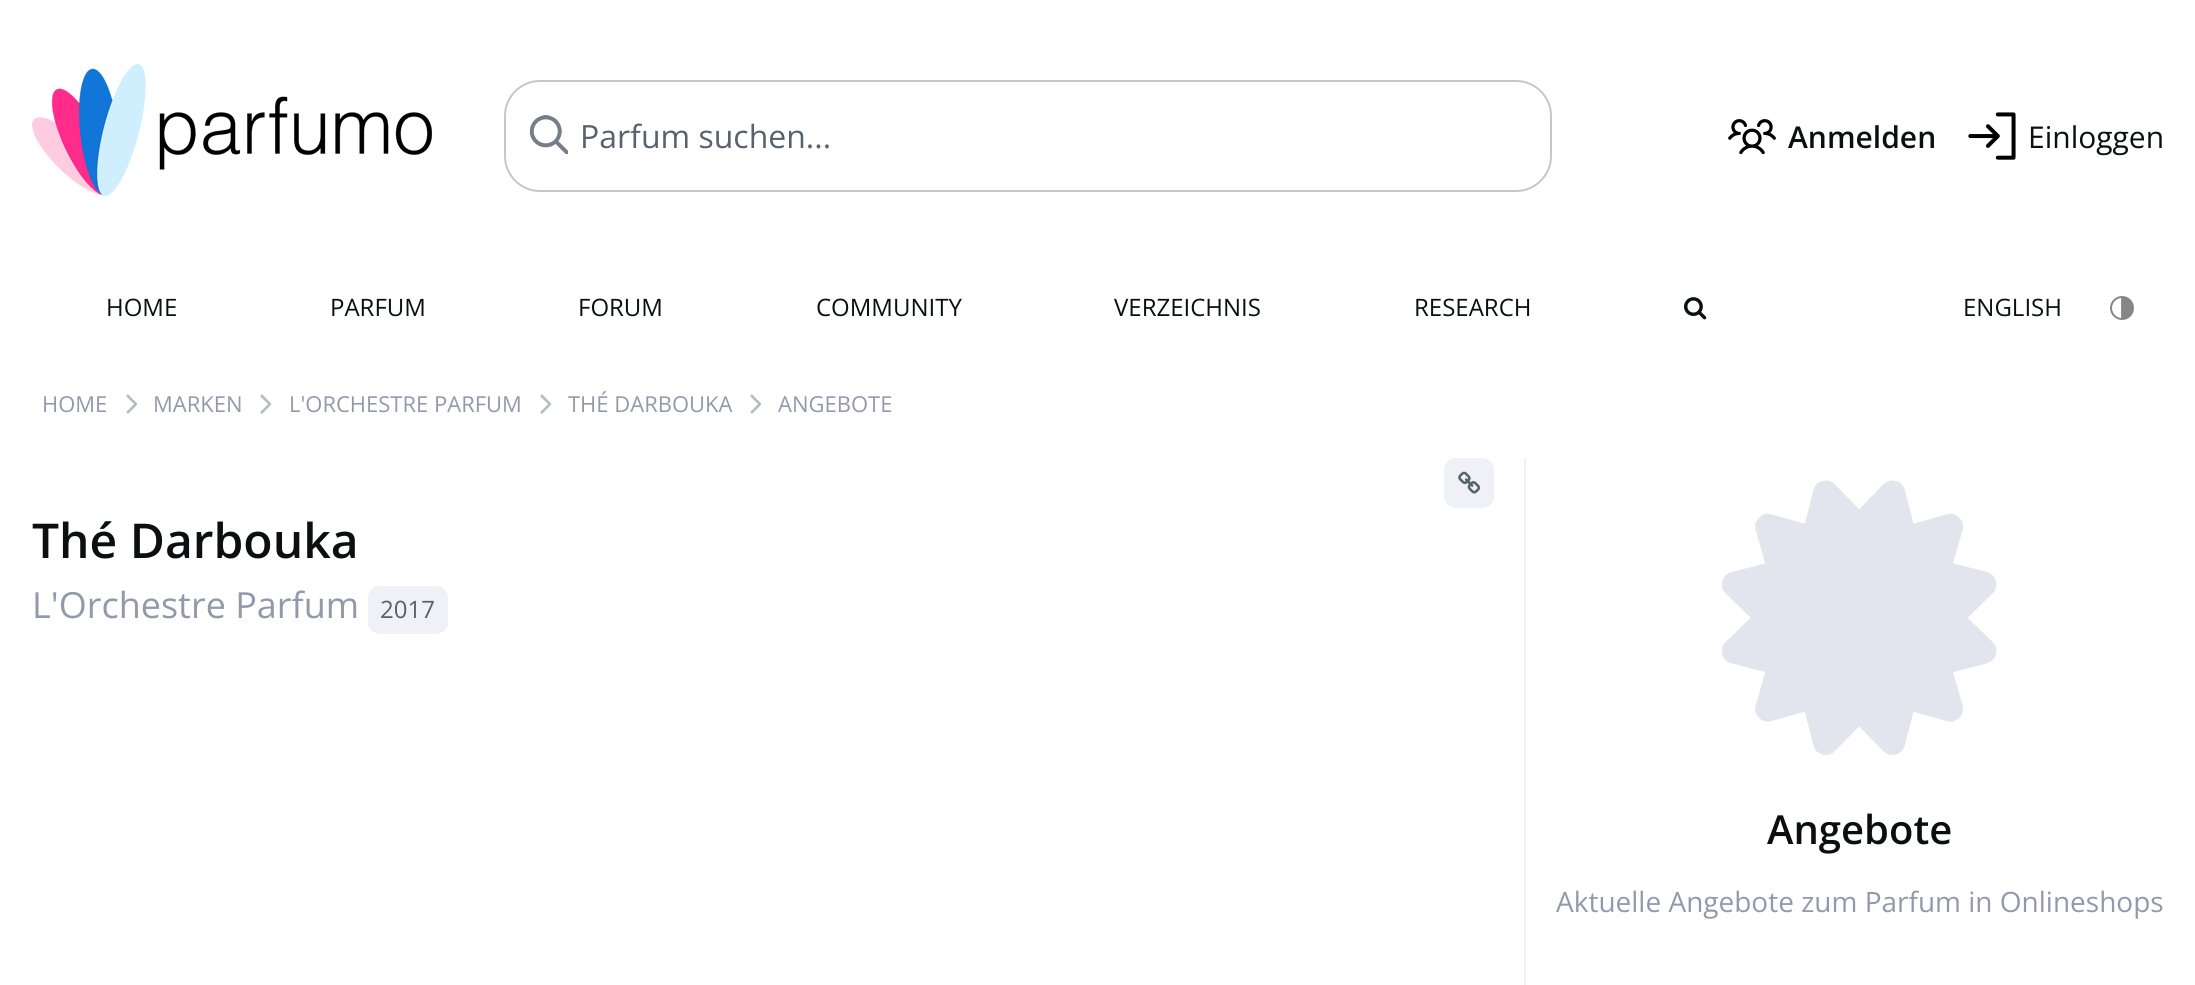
#include <cairo/cairo.h>
#include <math.h>
#include <stddef.h>

typedef struct { double x, y; const char *s; } line_t;
static cairo_t *cr;

static void rgb(unsigned color)
{
	cairo_set_source_rgb(cr, (color >> 16) / 255.0, (color >> 8 & 255) / 255.0, (color & 255) / 255.0);
}

static void rrect(double x, double y, double w, double h, double r)
{
	cairo_new_sub_path(cr);
	cairo_arc(cr, x + w - r, y + h - r, r, 0, M_PI / 2);
	cairo_arc(cr, x + r, y + h - r, r, M_PI / 2, M_PI);
	cairo_arc(cr, x + r, y + r, r, M_PI, 1.5 * M_PI);
	cairo_arc(cr, x + w - r, y + r, r, 1.5 * M_PI, 2 * M_PI);
	cairo_close_path(cr);
}

static void image(const char *path, double x, double y, double w, double h)
{
	cairo_surface_t *image = cairo_image_surface_create_from_png(path);
	cairo_save(cr);
	cairo_set_source_surface(cr, image, x, y);
	cairo_rectangle(cr, x, y, w, h);
	cairo_fill(cr);
	cairo_restore(cr);
	cairo_surface_destroy(image);
}

int main(void) {
	cairo_surface_t *surface = cairo_image_surface_create(CAIRO_FORMAT_RGB24, 2195, 985);
	cr = cairo_create(surface);
	cairo_font_options_t *options = cairo_font_options_create();
	cairo_font_options_set_hint_metrics(options, CAIRO_HINT_METRICS_OFF);
	cairo_font_options_set_hint_style(options, CAIRO_HINT_STYLE_NONE);
	cairo_set_font_options(cr, options);
	cairo_set_miter_limit(cr, 4);
	rgb(0xffffff);
	cairo_paint(cr);
	image("img/1.png", 32, 64, 400, 132);
	image("img/2.png", 530, 115, 38, 39);
	rrect(505, 81, 1046, 110, 35);
	rgb(0xc5c6d0);
	cairo_stroke(cr);
	image("img/3.png", 1728, 119, 48, 36);
	image("img/4.png", 1968, 112, 48, 48);
	image("img/5.png", 1684, 297, 23, 23);
	image("img/6.png", 2110, 296, 24, 24);
	image("img/7.png", 126, 394, 11, 20);
	image("img/7.png", 260, 394, 11, 20);
	image("img/7.png", 540, 394, 11, 20);
	image("img/7.png", 750, 394, 11, 20);
	rgb(0xf0f1f6);
	rrect(1445, 459, 48, 48, 11);
	cairo_fill_preserve(cr);
	cairo_stroke(cr);
	image("img/8.png", 1458, 471, 23, 23);
	rgb(0xeff1f6);
	rrect(368, 586, 80, 48, 12);
	cairo_fill(cr);
	rgb(0xf0f1f6);
	cairo_rectangle(cr, 1524, 458, 2, 527);
	cairo_fill(cr);
	image("img/9.png", 1722, 480, 275, 275);
	cairo_select_font_face(cr, "Open Sans", CAIRO_FONT_SLANT_NORMAL, CAIRO_FONT_WEIGHT_NORMAL);
	cairo_set_font_size(cr, 32);
	rgb(0x55636f);
	cairo_move_to(cr, 580, 148);
	cairo_show_text(cr, "Parfum suchen...");
	cairo_select_font_face(cr, "Open Sans SemiBold", CAIRO_FONT_SLANT_NORMAL, CAIRO_FONT_WEIGHT_NORMAL);
	cairo_set_font_size(cr, 30);
	rgb(0x0c0f10);
	cairo_move_to(cr, 1788, 148);
	cairo_show_text(cr, "Anmelden");
	cairo_select_font_face(cr, "Open Sans", CAIRO_FONT_SLANT_NORMAL, CAIRO_FONT_WEIGHT_NORMAL);
	cairo_move_to(cr, 2028, 148);
	cairo_show_text(cr, "Einloggen");
	cairo_set_font_size(cr, 24);
	{
		static const line_t items[] = {
			{106, 316, "HOME"},
			{330, 316, "PARFUM"},
			{578, 316, "FORUM"},
			{816, 316, "COMMUNITY"},
			{1114, 316, "VERZEICHNIS"},
			{1414, 316, "RESEARCH"},
			{1963, 316, "ENGLISH"},
		};
		for (size_t i = 0; i < sizeof items / sizeof *items; i++) {
			cairo_move_to(cr, items[i].x, items[i].y);
			cairo_show_text(cr, items[i].s);
		}
	}
	cairo_set_font_size(cr, 22);
	rgb(0x9299ac);
	{
		static const line_t items[] = {
			{42, 412, "HOME"},
			{153, 412, "MARKEN"},
			{289, 412, "L'ORCHESTRE PARFUM"},
			{568, 412, "THÉ DARBOUKA"},
			{778, 412, "ANGEBOTE"},
		};
		for (size_t i = 0; i < sizeof items / sizeof *items; i++) {
			cairo_move_to(cr, items[i].x, items[i].y);
			cairo_show_text(cr, items[i].s);
		}
	}
	cairo_select_font_face(cr, "Open Sans SemiBold", CAIRO_FONT_SLANT_NORMAL, CAIRO_FONT_WEIGHT_NORMAL);
	cairo_set_font_size(cr, 48);
	rgb(0x0c0f10);
	cairo_move_to(cr, 32, 558);
	cairo_show_text(cr, "Thé Darbouka");
	cairo_select_font_face(cr, "Open Sans", CAIRO_FONT_SLANT_NORMAL, CAIRO_FONT_WEIGHT_NORMAL);
	cairo_set_font_size(cr, 36);
	rgb(0x9299ac);
	cairo_move_to(cr, 32, 618);
	cairo_show_text(cr, "L'Orchestre Parfum");
	cairo_set_font_size(cr, 24);
	rgb(0x55636f);
	cairo_move_to(cr, 380, 618);
	cairo_show_text(cr, "2017");
	cairo_select_font_face(cr, "Open Sans SemiBold", CAIRO_FONT_SLANT_NORMAL, CAIRO_FONT_WEIGHT_NORMAL);
	cairo_set_font_size(cr, 40);
	rgb(0x0c0f10);
	cairo_move_to(cr, 1767, 844);
	cairo_show_text(cr, "Angebote");
	cairo_select_font_face(cr, "Open Sans", CAIRO_FONT_SLANT_NORMAL, CAIRO_FONT_WEIGHT_NORMAL);
	cairo_set_font_size(cr, 28);
	rgb(0x9299ac);
	cairo_move_to(cr, 1556, 912);
	cairo_show_text(cr, "Aktuelle Angebote zum Parfum in Onlineshops");
	cairo_surface_write_to_png(surface, "page.png");
	cairo_font_options_destroy(options);
	cairo_destroy(cr);
	cairo_surface_destroy(surface);
	return 0;
}
